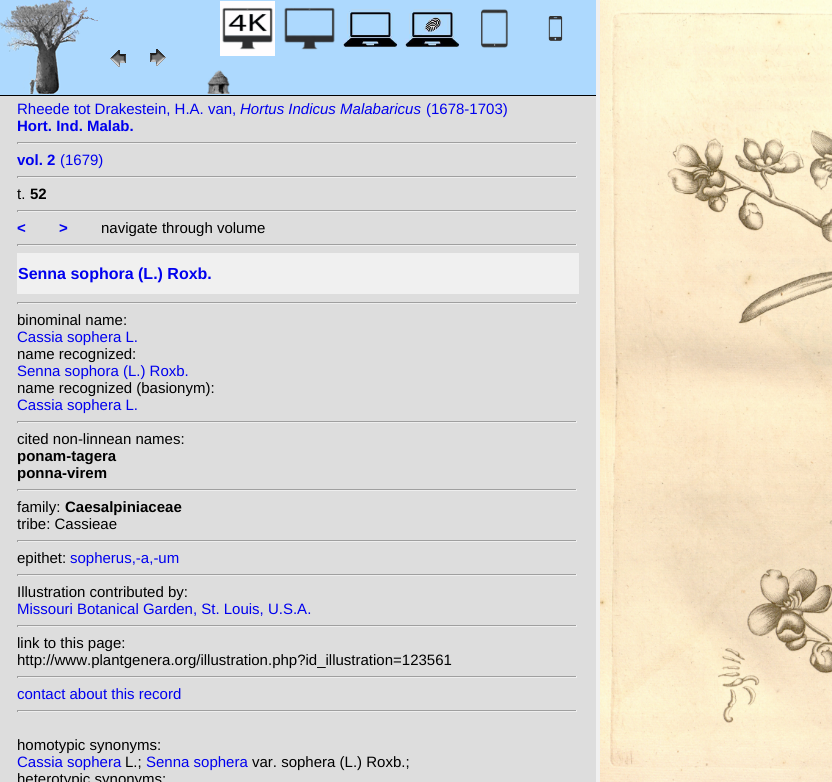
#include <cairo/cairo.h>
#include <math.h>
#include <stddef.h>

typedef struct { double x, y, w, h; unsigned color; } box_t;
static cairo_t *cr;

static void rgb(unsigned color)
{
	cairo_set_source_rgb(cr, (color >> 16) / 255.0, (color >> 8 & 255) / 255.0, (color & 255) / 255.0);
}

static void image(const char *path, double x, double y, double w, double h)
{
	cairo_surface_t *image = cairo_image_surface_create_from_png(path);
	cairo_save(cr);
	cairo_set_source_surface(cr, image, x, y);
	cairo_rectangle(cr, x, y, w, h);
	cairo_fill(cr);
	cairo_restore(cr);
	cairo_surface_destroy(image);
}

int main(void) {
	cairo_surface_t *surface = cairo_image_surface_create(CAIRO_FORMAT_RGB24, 832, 782);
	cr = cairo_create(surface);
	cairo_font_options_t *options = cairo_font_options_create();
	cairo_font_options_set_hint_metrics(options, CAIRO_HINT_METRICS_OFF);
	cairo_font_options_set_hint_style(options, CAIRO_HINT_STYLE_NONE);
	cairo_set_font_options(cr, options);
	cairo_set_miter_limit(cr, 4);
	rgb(0xf0f0f0);
	cairo_paint(cr);
	{
		static const box_t items[] = {
			{0, 96, 596, 686, 0xdddddd},
			{0, 0, 596, 95, 0xadd9fe},
			{0, 95, 596, 1, 0x000000},
		};
		for (size_t i = 0; i < sizeof items / sizeof *items; i++) {
			rgb(items[i].color);
			cairo_rectangle(cr, items[i].x, items[i].y, items[i].w, items[i].h);
			cairo_fill(cr);
		}
	}
	image("img/1.png", 0, 0, 100, 94);
	image("img/2.png", 110, 50, 16, 17);
	image("img/3.png", 150, 49, 16, 17);
	image("img/4.png", 220, 1, 55, 55);
	image("img/5.png", 284, 7, 51, 43);
	image("img/6.png", 343, 9, 55, 38);
	image("img/7.png", 405, 9, 55, 38);
	image("img/8.png", 481, 9, 27, 39);
	image("img/9.png", 548, 15, 15, 26);
	image("img/10.png", 207, 70, 23, 24);
	{
		static const box_t items[] = {
			{17, 142, 560, 1, 0x9f9f9f},
			{576, 142, 1, 2, 0xeeeeee},
			{17, 143, 560, 1, 0xeeeeee},
			{17, 142, 1, 2, 0x9f9f9f},
			{17, 176, 560, 1, 0x9f9f9f},
			{576, 176, 1, 2, 0xeeeeee},
			{17, 177, 560, 1, 0xeeeeee},
			{17, 176, 1, 2, 0x9f9f9f},
			{17, 210, 560, 1, 0x9f9f9f},
			{576, 210, 1, 2, 0xeeeeee},
			{17, 211, 560, 1, 0xeeeeee},
			{17, 210, 1, 2, 0x9f9f9f},
			{17, 244, 560, 1, 0x9f9f9f},
			{576, 244, 1, 2, 0xeeeeee},
			{17, 245, 560, 1, 0xeeeeee},
			{17, 244, 1, 2, 0x9f9f9f},
			{17, 253, 562, 41, 0xf0f0f0},
			{17, 302, 560, 1, 0x9f9f9f},
			{576, 302, 1, 2, 0xeeeeee},
			{17, 303, 560, 1, 0xeeeeee},
			{17, 302, 1, 2, 0x9f9f9f},
			{17, 421, 560, 1, 0x9f9f9f},
			{576, 421, 1, 2, 0xeeeeee},
			{17, 422, 560, 1, 0xeeeeee},
			{17, 421, 1, 2, 0x9f9f9f},
			{17, 489, 560, 1, 0x9f9f9f},
			{576, 489, 1, 2, 0xeeeeee},
			{17, 490, 560, 1, 0xeeeeee},
			{17, 489, 1, 2, 0x9f9f9f},
			{17, 540, 560, 1, 0x9f9f9f},
			{576, 540, 1, 2, 0xeeeeee},
			{17, 541, 560, 1, 0xeeeeee},
			{17, 540, 1, 2, 0x9f9f9f},
			{17, 574, 560, 1, 0x9f9f9f},
			{576, 574, 1, 2, 0xeeeeee},
			{17, 575, 560, 1, 0xeeeeee},
			{17, 574, 1, 2, 0x9f9f9f},
			{17, 625, 560, 1, 0x9f9f9f},
			{576, 625, 1, 2, 0xeeeeee},
			{17, 626, 560, 1, 0xeeeeee},
			{17, 625, 1, 2, 0x9f9f9f},
			{17, 676, 560, 1, 0x9f9f9f},
			{576, 676, 1, 2, 0xeeeeee},
			{17, 677, 560, 1, 0xeeeeee},
			{17, 676, 1, 2, 0x9f9f9f},
			{17, 710, 560, 1, 0x9f9f9f},
			{576, 710, 1, 2, 0xeeeeee},
			{17, 711, 560, 1, 0xeeeeee},
			{17, 710, 1, 2, 0x9f9f9f},
		};
		for (size_t i = 0; i < sizeof items / sizeof *items; i++) {
			rgb(items[i].color);
			cairo_rectangle(cr, items[i].x, items[i].y, items[i].w, items[i].h);
			cairo_fill(cr);
		}
	}
	image("img/11.png", 600, 0, 232, 782);
	cairo_select_font_face(cr, "Liberation Sans", CAIRO_FONT_SLANT_NORMAL, CAIRO_FONT_WEIGHT_NORMAL);
	cairo_set_font_size(cr, 15);
	rgb(0x0000ee);
	cairo_move_to(cr, 17, 114);
	cairo_show_text(cr, "Rheede tot Drakestein, H.A. van,");
	cairo_select_font_face(cr, "Liberation Sans", CAIRO_FONT_SLANT_ITALIC, CAIRO_FONT_WEIGHT_NORMAL);
	cairo_move_to(cr, 240, 114);
	cairo_show_text(cr, "Hortus Indicus Malabaricus");
	cairo_select_font_face(cr, "Liberation Sans", CAIRO_FONT_SLANT_NORMAL, CAIRO_FONT_WEIGHT_NORMAL);
	cairo_move_to(cr, 426, 114);
	cairo_show_text(cr, "(1678-1703)");
	cairo_select_font_face(cr, "Liberation Sans", CAIRO_FONT_SLANT_NORMAL, CAIRO_FONT_WEIGHT_BOLD);
	cairo_move_to(cr, 17, 131);
	cairo_show_text(cr, "Hort. Ind. Malab.");
	cairo_move_to(cr, 17, 165);
	cairo_show_text(cr, "vol. 2");
	cairo_select_font_face(cr, "Liberation Sans", CAIRO_FONT_SLANT_NORMAL, CAIRO_FONT_WEIGHT_NORMAL);
	cairo_move_to(cr, 60, 165);
	cairo_show_text(cr, "(1679)");
	rgb(0x000000);
	cairo_move_to(cr, 17, 199);
	cairo_show_text(cr, "t.");
	cairo_select_font_face(cr, "Liberation Sans", CAIRO_FONT_SLANT_NORMAL, CAIRO_FONT_WEIGHT_BOLD);
	cairo_move_to(cr, 30, 199);
	cairo_show_text(cr, "52");
	rgb(0x0000ee);
	cairo_move_to(cr, 17, 233);
	cairo_show_text(cr, "<");
	cairo_move_to(cr, 59, 233);
	cairo_show_text(cr, ">");
	cairo_select_font_face(cr, "Liberation Sans", CAIRO_FONT_SLANT_NORMAL, CAIRO_FONT_WEIGHT_NORMAL);
	rgb(0x000000);
	cairo_move_to(cr, 101, 233);
	cairo_show_text(cr, "navigate through volume");
	cairo_select_font_face(cr, "Liberation Sans", CAIRO_FONT_SLANT_NORMAL, CAIRO_FONT_WEIGHT_BOLD);
	cairo_set_font_size(cr, 16);
	rgb(0x0000ee);
	cairo_move_to(cr, 18, 279);
	cairo_show_text(cr, "Senna sophora (L.) Roxb.");
	cairo_select_font_face(cr, "Liberation Sans", CAIRO_FONT_SLANT_NORMAL, CAIRO_FONT_WEIGHT_NORMAL);
	cairo_set_font_size(cr, 15);
	rgb(0x000000);
	cairo_move_to(cr, 17, 325);
	cairo_show_text(cr, "binominal name:");
	rgb(0x0000ee);
	cairo_move_to(cr, 17, 342);
	cairo_show_text(cr, "Cassia sophera L.");
	rgb(0x000000);
	cairo_move_to(cr, 17, 359);
	cairo_show_text(cr, "name recognized:");
	rgb(0x0000ee);
	cairo_move_to(cr, 17, 376);
	cairo_show_text(cr, "Senna sophora (L.) Roxb.");
	rgb(0x000000);
	cairo_move_to(cr, 17, 393);
	cairo_show_text(cr, "name recognized (basionym):");
	rgb(0x0000ee);
	cairo_move_to(cr, 17, 410);
	cairo_show_text(cr, "Cassia sophera L.");
	rgb(0x000000);
	cairo_move_to(cr, 17, 444);
	cairo_show_text(cr, "cited non-linnean names:");
	cairo_select_font_face(cr, "Liberation Sans", CAIRO_FONT_SLANT_NORMAL, CAIRO_FONT_WEIGHT_BOLD);
	cairo_move_to(cr, 17, 461);
	cairo_show_text(cr, "ponam-tagera");
	cairo_move_to(cr, 17, 478);
	cairo_show_text(cr, "ponna-virem");
	cairo_select_font_face(cr, "Liberation Sans", CAIRO_FONT_SLANT_NORMAL, CAIRO_FONT_WEIGHT_NORMAL);
	cairo_move_to(cr, 17, 512);
	cairo_show_text(cr, "family:");
	cairo_select_font_face(cr, "Liberation Sans", CAIRO_FONT_SLANT_NORMAL, CAIRO_FONT_WEIGHT_BOLD);
	cairo_move_to(cr, 65, 512);
	cairo_show_text(cr, "Caesalpiniaceae");
	cairo_select_font_face(cr, "Liberation Sans", CAIRO_FONT_SLANT_NORMAL, CAIRO_FONT_WEIGHT_NORMAL);
	cairo_move_to(cr, 17, 529);
	cairo_show_text(cr, "tribe: Cassieae");
	cairo_move_to(cr, 17, 563);
	cairo_show_text(cr, "epithet:");
	rgb(0x0000ee);
	cairo_move_to(cr, 70, 563);
	cairo_show_text(cr, "sopherus,-a,-um");
	rgb(0x000000);
	cairo_move_to(cr, 17, 597);
	cairo_show_text(cr, "Illustration contributed by:");
	rgb(0x0000ee);
	cairo_move_to(cr, 17, 614);
	cairo_show_text(cr, "Missouri Botanical Garden, St. Louis, U.S.A.");
	rgb(0x000000);
	cairo_move_to(cr, 17, 648);
	cairo_show_text(cr, "link to this page:");
	cairo_move_to(cr, 17, 665);
	cairo_show_text(cr, "http://www.plantgenera.org/illustration.php?id_illustration=123561");
	rgb(0x0000ee);
	cairo_move_to(cr, 17, 699);
	cairo_show_text(cr, "contact about this record");
	rgb(0x000000);
	cairo_move_to(cr, 17, 750);
	cairo_show_text(cr, "homotypic synonyms:");
	rgb(0x0000ee);
	cairo_move_to(cr, 17, 767);
	cairo_show_text(cr, "Cassia sophera");
	rgb(0x000000);
	cairo_move_to(cr, 125, 767);
	cairo_show_text(cr, "L.;");
	rgb(0x0000ee);
	cairo_move_to(cr, 146, 767);
	cairo_show_text(cr, "Senna sophera");
	rgb(0x000000);
	cairo_move_to(cr, 252, 767);
	cairo_show_text(cr, "var. sophera (L.) Roxb.;");
	cairo_move_to(cr, 17, 784);
	cairo_show_text(cr, "heterotypic synonyms:");
	cairo_surface_write_to_png(surface, "page.png");
	cairo_font_options_destroy(options);
	cairo_destroy(cr);
	cairo_surface_destroy(surface);
	return 0;
}
